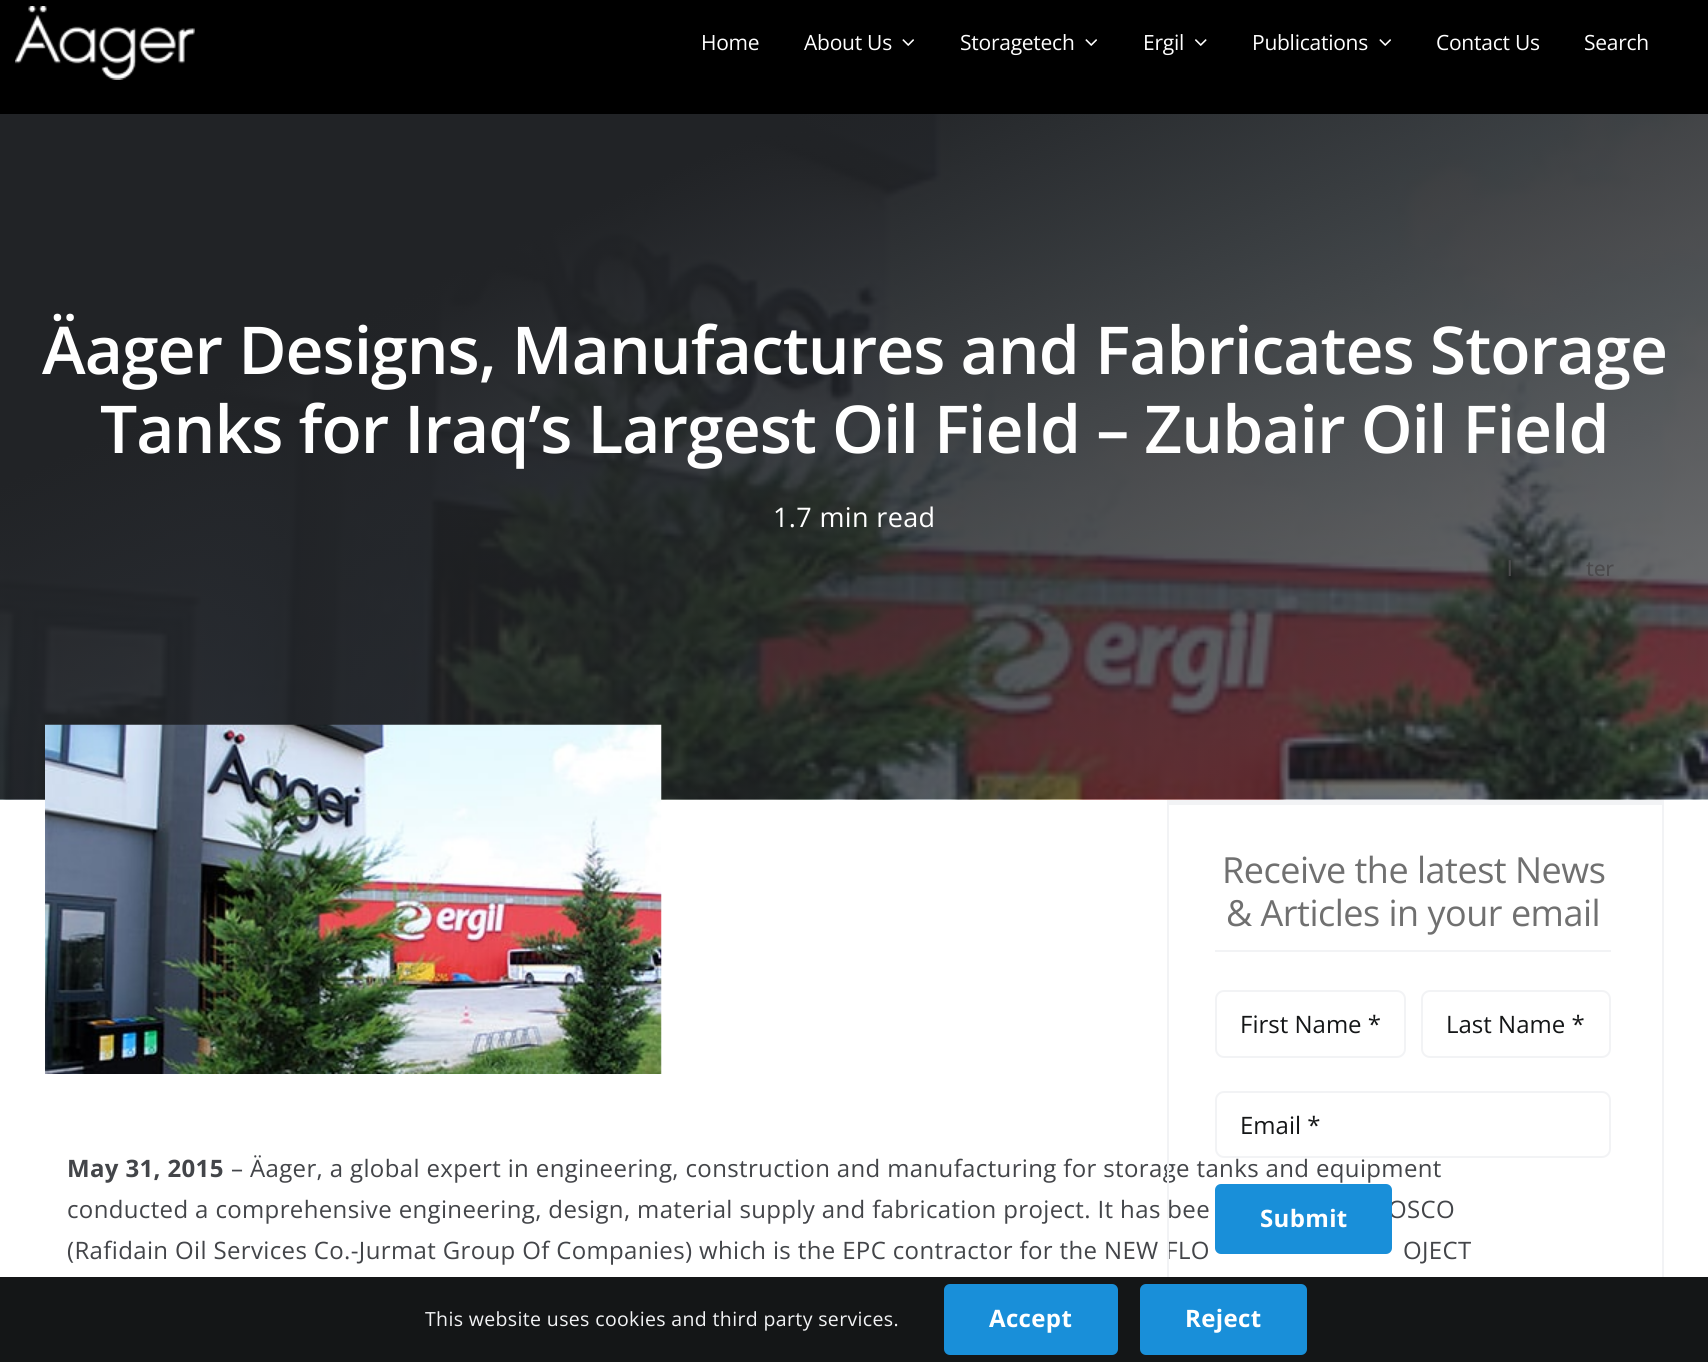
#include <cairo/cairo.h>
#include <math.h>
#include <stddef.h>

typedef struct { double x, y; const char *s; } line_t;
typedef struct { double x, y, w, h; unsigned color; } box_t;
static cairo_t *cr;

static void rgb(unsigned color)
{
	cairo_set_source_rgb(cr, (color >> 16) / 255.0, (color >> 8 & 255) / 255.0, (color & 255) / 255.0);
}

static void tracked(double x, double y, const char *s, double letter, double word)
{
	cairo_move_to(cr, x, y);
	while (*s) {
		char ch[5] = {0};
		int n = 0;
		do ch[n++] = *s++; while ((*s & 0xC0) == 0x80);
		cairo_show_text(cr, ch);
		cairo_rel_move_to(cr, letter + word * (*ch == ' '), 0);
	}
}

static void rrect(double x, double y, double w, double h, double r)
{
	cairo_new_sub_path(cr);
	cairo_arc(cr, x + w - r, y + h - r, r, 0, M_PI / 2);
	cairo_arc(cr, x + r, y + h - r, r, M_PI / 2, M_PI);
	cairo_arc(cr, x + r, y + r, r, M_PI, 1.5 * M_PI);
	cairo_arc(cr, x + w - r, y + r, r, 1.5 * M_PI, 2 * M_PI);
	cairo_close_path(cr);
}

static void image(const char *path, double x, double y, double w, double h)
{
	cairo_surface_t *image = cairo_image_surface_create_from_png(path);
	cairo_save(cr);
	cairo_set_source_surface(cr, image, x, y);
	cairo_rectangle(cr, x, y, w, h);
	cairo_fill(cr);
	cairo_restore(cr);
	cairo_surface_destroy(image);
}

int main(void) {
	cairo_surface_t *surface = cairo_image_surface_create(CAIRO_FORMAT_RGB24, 1708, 1362);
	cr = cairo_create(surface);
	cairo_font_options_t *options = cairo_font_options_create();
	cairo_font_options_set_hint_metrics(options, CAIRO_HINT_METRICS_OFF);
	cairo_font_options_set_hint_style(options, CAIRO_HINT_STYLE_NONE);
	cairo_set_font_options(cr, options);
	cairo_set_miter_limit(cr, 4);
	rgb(0xffffff);
	cairo_paint(cr);
	rgb(0x000000);
	cairo_rectangle(cr, 0, 0, 1708, 114);
	cairo_fill(cr);
	image("img/1.png", 15, 6, 180, 74);
	image("img/2.png", 902, 39, 12, 7);
	image("img/2.png", 1085, 39, 12, 7);
	image("img/3.png", 1195, 39, 12, 7);
	image("img/2.png", 1379, 39, 12, 7);
	image("img/4.png", 0, 114, 1708, 686);
	{
		static const box_t items[] = {
			{1167, 800, 497, 5, 0xf2f3f5},
			{1662, 800, 2, 477, 0xf2f3f5},
			{1215, 950, 396, 2, 0xf2f3f5},
		};
		for (size_t i = 0; i < sizeof items / sizeof *items; i++) {
			rgb(items[i].color);
			cairo_rectangle(cr, items[i].x, items[i].y, items[i].w, items[i].h);
			cairo_fill(cr);
		}
	}
	rrect(1216, 991, 189, 66, 8);
	cairo_stroke(cr);
	rrect(1422, 991, 188, 66, 8);
	cairo_stroke(cr);
	image("img/5.png", 45, 724, 617, 350);
	rgb(0x141617);
	cairo_rectangle(cr, 0, 1277, 1708, 85);
	cairo_fill(cr);
	rgb(0x198fd9);
	rrect(945, 1285, 172, 69, 5);
	cairo_fill_preserve(cr);
	cairo_stroke(cr);
	rrect(1141, 1285, 165, 69, 5);
	cairo_fill_preserve(cr);
	cairo_stroke(cr);
	cairo_select_font_face(cr, "Open Sans", CAIRO_FONT_SLANT_NORMAL, CAIRO_FONT_WEIGHT_NORMAL);
	cairo_set_font_size(cr, 21);
	rgb(0xffffff);
	{
		static const line_t items[] = {
			{804, 50, "About Us"},
			{960, 50, "Storagetech"},
			{1143, 50, "Ergil"},
		};
		for (size_t i = 0; i < sizeof items / sizeof *items; i++) {
			tracked(items[i].x, items[i].y, items[i].s, -0.25, 0);
		}
	}
	cairo_select_font_face(cr, "Open Sans Medium", CAIRO_FONT_SLANT_NORMAL, CAIRO_FONT_WEIGHT_NORMAL);
	rgb(0x4b4a4c);
	tracked(1507, 576, "l", -0.25, 0);
	tracked(1586, 576, "ter", -0.25, 0);
	cairo_select_font_face(cr, "Open Sans", CAIRO_FONT_SLANT_NORMAL, CAIRO_FONT_WEIGHT_NORMAL);
	rgb(0xffffff);
	{
		static const line_t items[] = {
			{701, 50, "Home"},
			{1252, 50, "Publications"},
			{1436, 50, "Contact Us"},
			{1584, 50, "Search"},
		};
		for (size_t i = 0; i < sizeof items / sizeof *items; i++) {
			tracked(items[i].x, items[i].y, items[i].s, -0.25, 0);
		}
	}
	cairo_select_font_face(cr, "Open Sans SemiBold", CAIRO_FONT_SLANT_NORMAL, CAIRO_FONT_WEIGHT_NORMAL);
	cairo_set_font_size(cr, 66);
	tracked(42, 374, "Äager Designs, Manufactures and Fabricates Storage", -1, 0);
	tracked(100, 453, "Tanks for Iraq’s Largest Oil Field – Zubair Oil Field", -1, 0);
	cairo_select_font_face(cr, "Open Sans", CAIRO_FONT_SLANT_NORMAL, CAIRO_FONT_WEIGHT_NORMAL);
	cairo_set_font_size(cr, 27);
	tracked(773, 527, "1.7 min read", 0.36, 0);
	cairo_set_font_size(cr, 36);
	rgb(0x707070);
	tracked(1222, 883, "Receive the latest News", -0.5, 0);
	tracked(1226, 926, "& Articles in your email", -0.5, 0);
	cairo_set_font_size(cr, 24);
	rgb(0x141617);
	cairo_move_to(cr, 1240, 1033);
	cairo_show_text(cr, "First Name *");
	cairo_move_to(cr, 1446, 1033);
	cairo_show_text(cr, "Last Name *");
	cairo_select_font_face(cr, "Open Sans", CAIRO_FONT_SLANT_NORMAL, CAIRO_FONT_WEIGHT_BOLD);
	rgb(0x434549);
	tracked(67, 1177, "May 31, 2015", 0.36, 0);
	cairo_select_font_face(cr, "Open Sans", CAIRO_FONT_SLANT_NORMAL, CAIRO_FONT_WEIGHT_NORMAL);
	tracked(231, 1177, "– Äager, a global expert in engineering, construction and manufacturing for storage tanks and equipment", 0.36, 0);
	rrect(1216, 1092, 394, 65, 8);
	rgb(0xf2f3f5);
	cairo_stroke(cr);
	rgb(0x141617);
	cairo_move_to(cr, 1240, 1134);
	cairo_show_text(cr, "Email *");
	rgb(0x434549);
	tracked(67, 1218, "conducted a comprehensive engineering, design, material supply and fabrication project. It has bee", 0.36, 0);
	tracked(1388, 1218, "OSCO", 0.36, 0);
	rgb(0x198fd9);
	rrect(1216, 1185, 175, 68, 5);
	cairo_fill_preserve(cr);
	cairo_stroke(cr);
	cairo_select_font_face(cr, "Open Sans", CAIRO_FONT_SLANT_NORMAL, CAIRO_FONT_WEIGHT_BOLD);
	rgb(0xffffff);
	tracked(1260, 1227, "Submit", 0.36, 0);
	cairo_select_font_face(cr, "Open Sans", CAIRO_FONT_SLANT_NORMAL, CAIRO_FONT_WEIGHT_NORMAL);
	rgb(0x434549);
	tracked(67, 1259, "(Rafidain Oil Services Co.-Jurmat Group Of Companies) which is the EPC contractor for the NEW FLO", 0.36, 0);
	rgb(0xf2f3f5);
	cairo_rectangle(cr, 1167, 800, 2, 477);
	cairo_fill(cr);
	rgb(0x434549);
	tracked(1403, 1259, "OJECT", 0.36, 0);
	cairo_set_font_size(cr, 19.5);
	rgb(0xf2f3f5);
	tracked(425, 1326, "This website uses cookies and third party services.", 0.36, 0);
	cairo_select_font_face(cr, "Open Sans", CAIRO_FONT_SLANT_NORMAL, CAIRO_FONT_WEIGHT_BOLD);
	cairo_set_font_size(cr, 24);
	rgb(0xffffff);
	tracked(989, 1327, "Accept", 0.36, 0);
	tracked(1185, 1327, "Reject", 0.36, 0);
	cairo_surface_write_to_png(surface, "page.png");
	cairo_font_options_destroy(options);
	cairo_destroy(cr);
	cairo_surface_destroy(surface);
	return 0;
}
